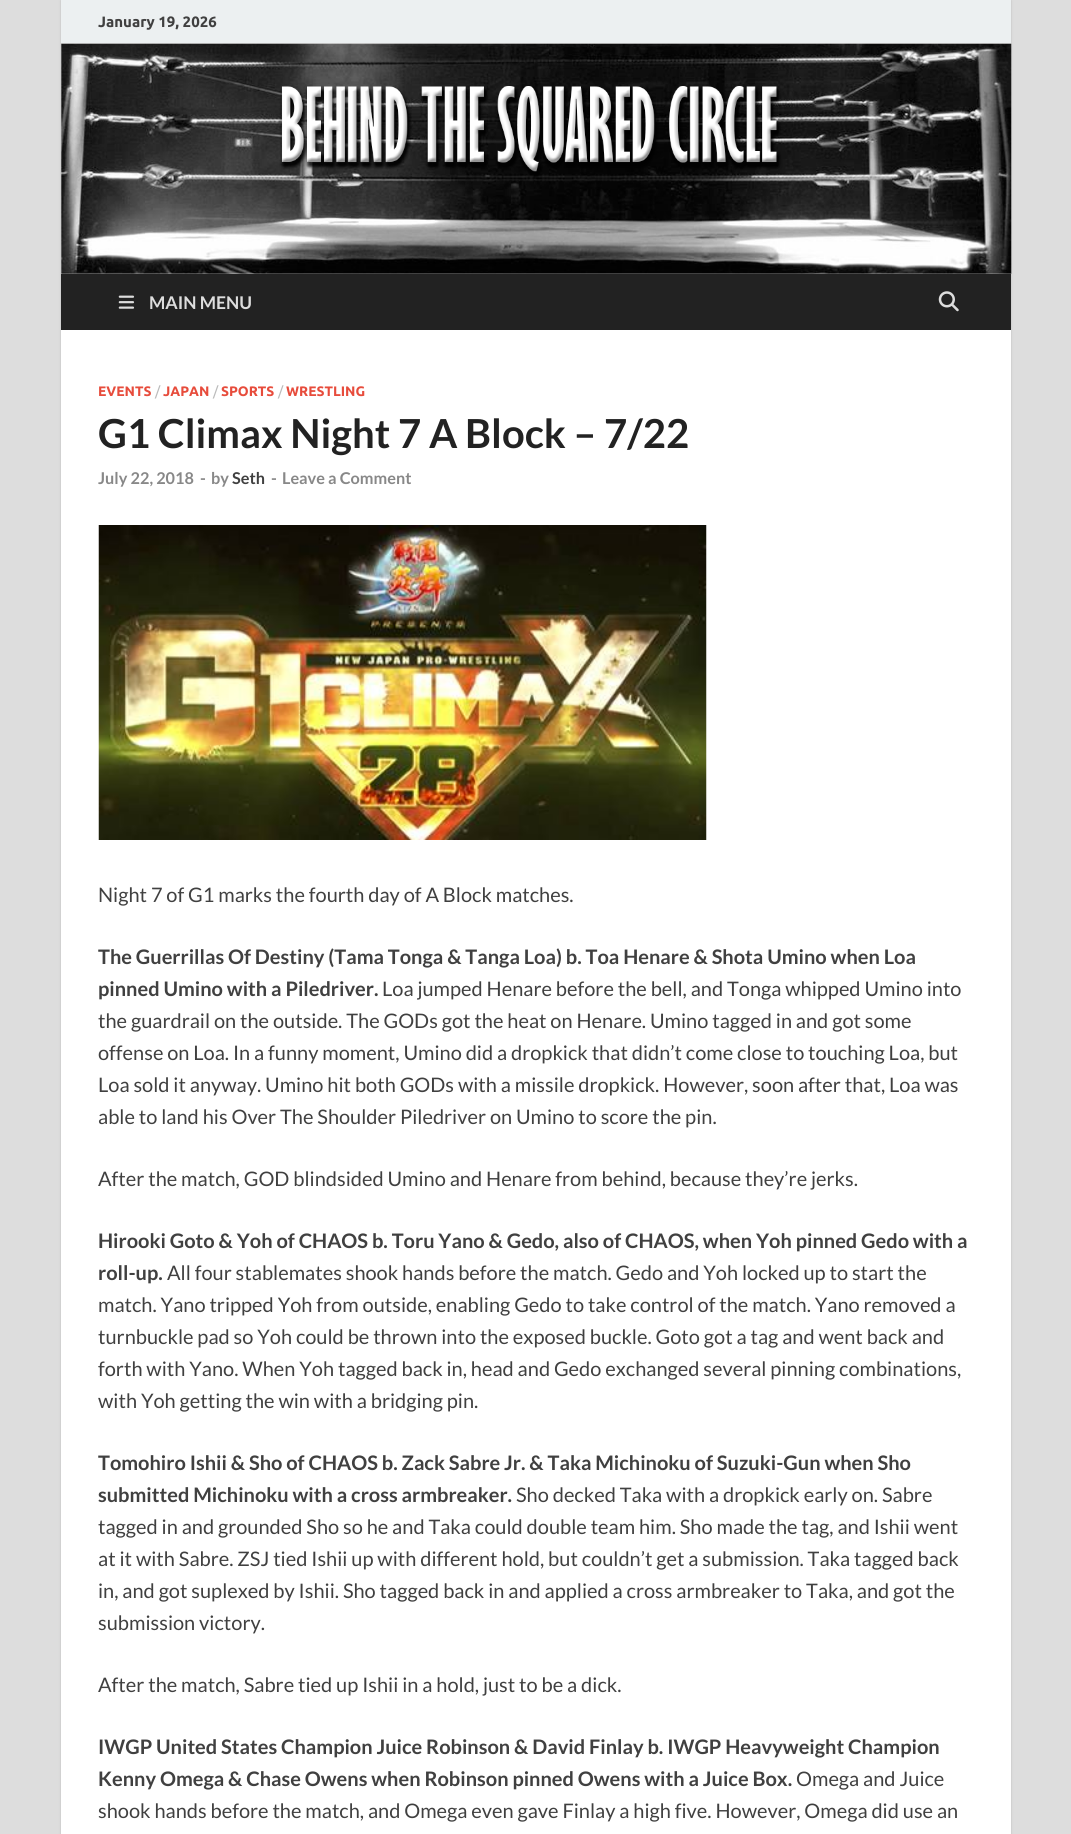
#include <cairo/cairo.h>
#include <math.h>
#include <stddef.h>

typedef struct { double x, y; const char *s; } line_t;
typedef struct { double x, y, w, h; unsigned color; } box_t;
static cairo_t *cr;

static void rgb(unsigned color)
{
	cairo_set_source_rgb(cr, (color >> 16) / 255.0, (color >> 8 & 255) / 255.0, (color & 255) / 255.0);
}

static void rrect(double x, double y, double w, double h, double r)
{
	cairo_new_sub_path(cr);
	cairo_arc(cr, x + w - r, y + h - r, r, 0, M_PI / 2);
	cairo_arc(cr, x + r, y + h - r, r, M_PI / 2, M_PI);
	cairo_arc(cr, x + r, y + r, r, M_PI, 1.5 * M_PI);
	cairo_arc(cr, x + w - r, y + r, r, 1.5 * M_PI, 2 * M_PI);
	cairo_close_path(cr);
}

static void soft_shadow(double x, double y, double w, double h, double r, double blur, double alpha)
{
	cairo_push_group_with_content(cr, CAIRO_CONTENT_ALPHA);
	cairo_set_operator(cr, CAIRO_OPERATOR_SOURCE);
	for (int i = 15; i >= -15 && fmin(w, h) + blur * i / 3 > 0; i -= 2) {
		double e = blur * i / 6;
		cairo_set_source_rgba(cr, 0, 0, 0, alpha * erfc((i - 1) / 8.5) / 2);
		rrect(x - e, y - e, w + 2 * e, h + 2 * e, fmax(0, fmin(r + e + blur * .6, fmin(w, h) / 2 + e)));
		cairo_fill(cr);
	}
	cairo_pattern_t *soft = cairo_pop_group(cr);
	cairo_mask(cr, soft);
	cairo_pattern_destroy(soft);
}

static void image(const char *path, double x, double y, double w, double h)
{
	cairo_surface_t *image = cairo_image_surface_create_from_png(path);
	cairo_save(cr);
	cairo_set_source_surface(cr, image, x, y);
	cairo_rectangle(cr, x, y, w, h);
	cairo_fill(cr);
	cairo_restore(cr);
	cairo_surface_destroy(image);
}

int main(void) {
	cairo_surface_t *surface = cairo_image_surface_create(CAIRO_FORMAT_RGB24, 1071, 1834);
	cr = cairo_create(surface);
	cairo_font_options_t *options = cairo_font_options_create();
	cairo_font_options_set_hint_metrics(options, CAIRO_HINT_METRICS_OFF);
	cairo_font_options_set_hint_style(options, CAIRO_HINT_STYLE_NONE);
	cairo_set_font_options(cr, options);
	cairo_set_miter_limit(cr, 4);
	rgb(0xdddddd);
	cairo_paint(cr);
	rgb(0xbbbbbb);
	soft_shadow(61, 0, 950, 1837, 0, 1, 1);
	{
		static const box_t items[] = {
			{61, 44, 950, 1790, 0xffffff},
			{61, 0, 950, 43, 0xecf0f1},
			{61, 43, 950, 1, 0xdddddd},
		};
		for (size_t i = 0; i < sizeof items / sizeof *items; i++) {
			rgb(items[i].color);
			cairo_rectangle(cr, items[i].x, items[i].y, items[i].w, items[i].h);
			cairo_fill(cr);
		}
	}
	image("img/1.png", 61, 43, 951, 231);
	rgb(0x222222);
	cairo_rectangle(cr, 61, 274, 950, 56);
	cairo_fill(cr);
	image("img/2.png", 118, 295, 17, 14);
	image("img/3.png", 938, 291, 21, 21);
	image("img/4.png", 98, 525, 609, 315);
	cairo_select_font_face(cr, "Ubuntu", CAIRO_FONT_SLANT_NORMAL, CAIRO_FONT_WEIGHT_BOLD);
	cairo_set_font_size(cr, 15);
	rgb(0x404040);
	cairo_move_to(cr, 98, 27);
	cairo_show_text(cr, "January 19, 2026");
	cairo_select_font_face(cr, "Lato", CAIRO_FONT_SLANT_NORMAL, CAIRO_FONT_WEIGHT_BOLD);
	cairo_set_font_size(cr, 17.5);
	rgb(0xdddddd);
	cairo_move_to(cr, 149, 309);
	cairo_show_text(cr, "MAIN MENU");
	cairo_select_font_face(cr, "Ubuntu", CAIRO_FONT_SLANT_NORMAL, CAIRO_FONT_WEIGHT_BOLD);
	cairo_set_font_size(cr, 13.75);
	rgb(0xe74c3c);
	cairo_move_to(cr, 98, 396);
	cairo_show_text(cr, "EVENTS");
	cairo_select_font_face(cr, "Ubuntu", CAIRO_FONT_SLANT_NORMAL, CAIRO_FONT_WEIGHT_NORMAL);
	rgb(0xbbbbbb);
	cairo_move_to(cr, 155, 396);
	cairo_show_text(cr, "/");
	cairo_select_font_face(cr, "Ubuntu", CAIRO_FONT_SLANT_NORMAL, CAIRO_FONT_WEIGHT_BOLD);
	rgb(0xe74c3c);
	cairo_move_to(cr, 163, 396);
	cairo_show_text(cr, "JAPAN");
	cairo_select_font_face(cr, "Ubuntu", CAIRO_FONT_SLANT_NORMAL, CAIRO_FONT_WEIGHT_NORMAL);
	rgb(0xbbbbbb);
	cairo_move_to(cr, 213, 396);
	cairo_show_text(cr, "/");
	cairo_select_font_face(cr, "Ubuntu", CAIRO_FONT_SLANT_NORMAL, CAIRO_FONT_WEIGHT_BOLD);
	rgb(0xe74c3c);
	cairo_move_to(cr, 221, 396);
	cairo_show_text(cr, "SPORTS");
	cairo_select_font_face(cr, "Ubuntu", CAIRO_FONT_SLANT_NORMAL, CAIRO_FONT_WEIGHT_NORMAL);
	rgb(0xbbbbbb);
	cairo_move_to(cr, 278, 396);
	cairo_show_text(cr, "/");
	cairo_select_font_face(cr, "Ubuntu", CAIRO_FONT_SLANT_NORMAL, CAIRO_FONT_WEIGHT_BOLD);
	rgb(0xe74c3c);
	cairo_move_to(cr, 286, 396);
	cairo_show_text(cr, "WRESTLING");
	cairo_select_font_face(cr, "Lato", CAIRO_FONT_SLANT_NORMAL, CAIRO_FONT_WEIGHT_BOLD);
	cairo_set_font_size(cr, 40);
	rgb(0x222222);
	cairo_move_to(cr, 98, 448);
	cairo_show_text(cr, "G1 Climax Night 7 A Block – 7/22");
	cairo_set_font_size(cr, 16.25);
	rgb(0x888888);
	{
		static const line_t items[] = {
			{98, 484, "July 22, 2018"},
			{200, 484, "-"},
			{211, 484, "by"},
		};
		for (size_t i = 0; i < sizeof items / sizeof *items; i++) {
			cairo_move_to(cr, items[i].x, items[i].y);
			cairo_show_text(cr, items[i].s);
		}
	}
	rgb(0x404040);
	cairo_move_to(cr, 232, 484);
	cairo_show_text(cr, "Seth");
	rgb(0x888888);
	cairo_move_to(cr, 271, 484);
	cairo_show_text(cr, "-");
	cairo_move_to(cr, 282, 484);
	cairo_show_text(cr, "Leave a Comment");
	cairo_select_font_face(cr, "Lato", CAIRO_FONT_SLANT_NORMAL, CAIRO_FONT_WEIGHT_NORMAL);
	cairo_set_font_size(cr, 20);
	rgb(0x404040);
	cairo_move_to(cr, 98, 902);
	cairo_show_text(cr, "Night 7 of G1 marks the fourth day of A Block matches.");
	cairo_select_font_face(cr, "Lato", CAIRO_FONT_SLANT_NORMAL, CAIRO_FONT_WEIGHT_BOLD);
	cairo_move_to(cr, 98, 964);
	cairo_show_text(cr, "The Guerrillas Of Destiny (Tama Tonga & Tanga Loa) b. Toa Henare & Shota Umino when Loa");
	cairo_move_to(cr, 98, 996);
	cairo_show_text(cr, "pinned Umino with a Piledriver.");
	cairo_select_font_face(cr, "Lato", CAIRO_FONT_SLANT_NORMAL, CAIRO_FONT_WEIGHT_NORMAL);
	{
		static const line_t items[] = {
			{382, 996, "Loa jumped Henare before the bell, and Tonga whipped Umino into"},
			{98, 1028, "the guardrail on the outside. The GODs got the heat on Henare. Umino tagged in and got some"},
			{98, 1060, "offense on Loa. In a funny moment, Umino did a dropkick that didn’t come close to touching Loa, but"},
			{98, 1092, "Loa sold it anyway. Umino hit both GODs with a missile dropkick. However, soon after that, Loa was"},
			{98, 1124, "able to land his Over The Shoulder Piledriver on Umino to score the pin."},
			{98, 1186, "After the match, GOD blindsided Umino and Henare from behind, because they’re jerks."},
		};
		for (size_t i = 0; i < sizeof items / sizeof *items; i++) {
			cairo_move_to(cr, items[i].x, items[i].y);
			cairo_show_text(cr, items[i].s);
		}
	}
	cairo_select_font_face(cr, "Lato", CAIRO_FONT_SLANT_NORMAL, CAIRO_FONT_WEIGHT_BOLD);
	cairo_move_to(cr, 98, 1248);
	cairo_show_text(cr, "Hirooki Goto & Yoh of CHAOS b. Toru Yano & Gedo, also of CHAOS, when Yoh pinned Gedo with a");
	cairo_move_to(cr, 98, 1280);
	cairo_show_text(cr, "roll-up.");
	cairo_select_font_face(cr, "Lato", CAIRO_FONT_SLANT_NORMAL, CAIRO_FONT_WEIGHT_NORMAL);
	{
		static const line_t items[] = {
			{167, 1280, "All four stablemates shook hands before the match. Gedo and Yoh locked up to start the"},
			{98, 1312, "match. Yano tripped Yoh from outside, enabling Gedo to take control of the match. Yano removed a"},
			{98, 1344, "turnbuckle pad so Yoh could be thrown into the exposed buckle. Goto got a tag and went back and"},
			{98, 1376, "forth with Yano. When Yoh tagged back in, head and Gedo exchanged several pinning combinations,"},
			{98, 1408, "with Yoh getting the win with a bridging pin."},
		};
		for (size_t i = 0; i < sizeof items / sizeof *items; i++) {
			cairo_move_to(cr, items[i].x, items[i].y);
			cairo_show_text(cr, items[i].s);
		}
	}
	cairo_select_font_face(cr, "Lato", CAIRO_FONT_SLANT_NORMAL, CAIRO_FONT_WEIGHT_BOLD);
	cairo_move_to(cr, 98, 1470);
	cairo_show_text(cr, "Tomohiro Ishii & Sho of CHAOS b. Zack Sabre Jr. & Taka Michinoku of Suzuki-Gun when Sho");
	cairo_move_to(cr, 98, 1502);
	cairo_show_text(cr, "submitted Michinoku with a cross armbreaker.");
	cairo_select_font_face(cr, "Lato", CAIRO_FONT_SLANT_NORMAL, CAIRO_FONT_WEIGHT_NORMAL);
	{
		static const line_t items[] = {
			{516, 1502, "Sho decked Taka with a dropkick early on. Sabre"},
			{98, 1534, "tagged in and grounded Sho so he and Taka could double team him. Sho made the tag, and Ishii went"},
			{98, 1566, "at it with Sabre. ZSJ tied Ishii up with different hold, but couldn’t get a submission. Taka tagged back"},
			{98, 1598, "in, and got suplexed by Ishii. Sho tagged back in and applied a cross armbreaker to Taka, and got the"},
			{98, 1630, "submission victory."},
			{98, 1692, "After the match, Sabre tied up Ishii in a hold, just to be a dick."},
		};
		for (size_t i = 0; i < sizeof items / sizeof *items; i++) {
			cairo_move_to(cr, items[i].x, items[i].y);
			cairo_show_text(cr, items[i].s);
		}
	}
	cairo_select_font_face(cr, "Lato", CAIRO_FONT_SLANT_NORMAL, CAIRO_FONT_WEIGHT_BOLD);
	cairo_move_to(cr, 98, 1754);
	cairo_show_text(cr, "IWGP United States Champion Juice Robinson & David Finlay b. IWGP Heavyweight Champion");
	cairo_move_to(cr, 98, 1786);
	cairo_show_text(cr, "Kenny Omega & Chase Owens when Robinson pinned Owens with a Juice Box.");
	cairo_select_font_face(cr, "Lato", CAIRO_FONT_SLANT_NORMAL, CAIRO_FONT_WEIGHT_NORMAL);
	cairo_move_to(cr, 796, 1786);
	cairo_show_text(cr, "Omega and Juice");
	cairo_move_to(cr, 98, 1818);
	cairo_show_text(cr, "shook hands before the match, and Omega even gave Finlay a high five. However, Omega did use an");
	cairo_surface_write_to_png(surface, "page.png");
	cairo_font_options_destroy(options);
	cairo_destroy(cr);
	cairo_surface_destroy(surface);
	return 0;
}
